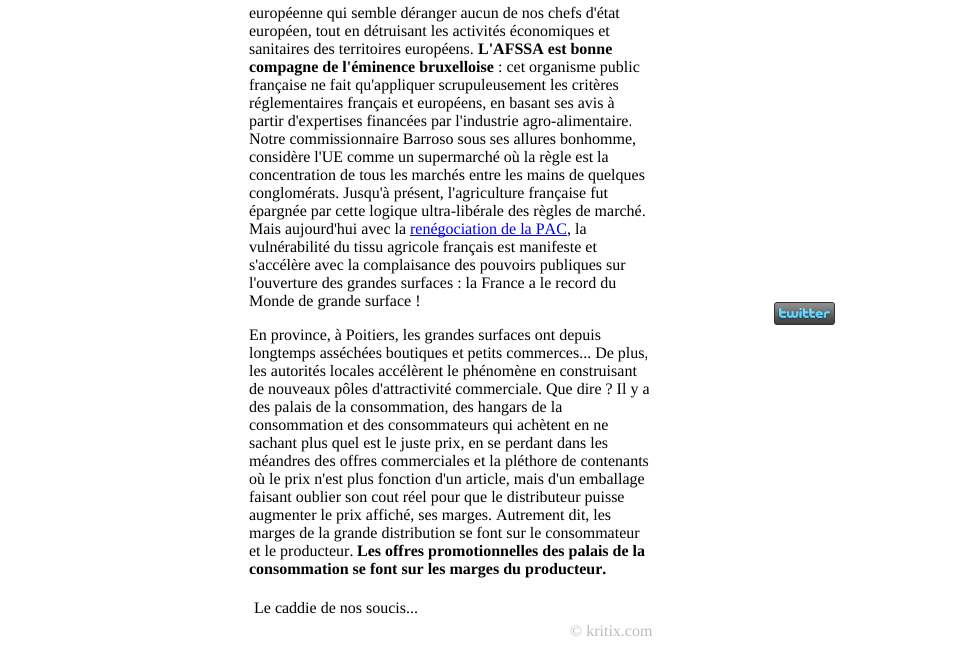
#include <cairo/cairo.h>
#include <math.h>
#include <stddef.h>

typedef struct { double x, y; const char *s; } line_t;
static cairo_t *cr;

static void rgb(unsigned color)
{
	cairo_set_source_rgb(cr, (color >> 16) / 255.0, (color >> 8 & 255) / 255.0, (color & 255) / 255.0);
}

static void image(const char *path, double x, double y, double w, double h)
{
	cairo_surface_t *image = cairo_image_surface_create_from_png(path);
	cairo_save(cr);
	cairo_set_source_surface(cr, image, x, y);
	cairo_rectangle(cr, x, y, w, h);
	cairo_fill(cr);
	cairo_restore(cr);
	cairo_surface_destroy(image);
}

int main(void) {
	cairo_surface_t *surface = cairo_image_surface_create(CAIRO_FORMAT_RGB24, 960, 661);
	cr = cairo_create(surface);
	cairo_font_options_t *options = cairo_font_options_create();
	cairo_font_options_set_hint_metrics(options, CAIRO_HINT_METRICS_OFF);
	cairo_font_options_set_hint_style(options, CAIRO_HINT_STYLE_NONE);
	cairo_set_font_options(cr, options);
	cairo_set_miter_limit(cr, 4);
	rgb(0xffffff);
	cairo_paint(cr);
	rgb(0x0000ee);
	cairo_rectangle(cr, 410, 235, 157, 1);
	cairo_fill(cr);
	image("img/1.png", 774, 302, 61, 23);
	cairo_select_font_face(cr, "Liberation Serif", CAIRO_FONT_SLANT_NORMAL, CAIRO_FONT_WEIGHT_NORMAL);
	cairo_set_font_size(cr, 16);
	rgb(0x000000);
	{
		static const line_t items[] = {
			{249, 18, "européenne qui semble déranger aucun de nos chefs d'état"},
			{249, 36, "européen, tout en détruisant les activités économiques et"},
			{249, 54, "sanitaires des territoires européens."},
		};
		for (size_t i = 0; i < sizeof items / sizeof *items; i++) {
			cairo_move_to(cr, items[i].x, items[i].y);
			cairo_show_text(cr, items[i].s);
		}
	}
	cairo_select_font_face(cr, "Liberation Serif", CAIRO_FONT_SLANT_NORMAL, CAIRO_FONT_WEIGHT_BOLD);
	cairo_move_to(cr, 478, 54);
	cairo_show_text(cr, "L'AFSSA est bonne");
	cairo_move_to(cr, 249, 72);
	cairo_show_text(cr, "compagne de l'éminence bruxelloise");
	cairo_select_font_face(cr, "Liberation Serif", CAIRO_FONT_SLANT_NORMAL, CAIRO_FONT_WEIGHT_NORMAL);
	{
		static const line_t items[] = {
			{498, 72, ": cet organisme public"},
			{249, 90, "française ne fait qu'appliquer scrupuleusement les critères"},
			{249, 108, "réglementaires français et européens, en basant ses avis à"},
			{249, 126, "partir d'expertises financées par l'industrie agro-alimentaire."},
			{249, 144, "Notre commissionnaire Barroso sous ses allures bonhomme,"},
			{249, 162, "considère l'UE comme un supermarché où la règle est la"},
			{249, 180, "concentration de tous les marchés entre les mains de quelques"},
			{249, 198, "conglomérats. Jusqu'à présent, l'agriculture française fut"},
			{249, 216, "épargnée par cette logique ultra-libérale des règles de marché."},
			{249, 234, "Mais aujourd'hui avec la"},
		};
		for (size_t i = 0; i < sizeof items / sizeof *items; i++) {
			cairo_move_to(cr, items[i].x, items[i].y);
			cairo_show_text(cr, items[i].s);
		}
	}
	rgb(0x0000ee);
	cairo_move_to(cr, 410, 234);
	cairo_show_text(cr, "renégociation de la PAC");
	rgb(0x000000);
	{
		static const line_t items[] = {
			{567, 234, ", la"},
			{249, 252, "vulnérabilité du tissu agricole français est manifeste et"},
			{249, 270, "s'accélère avec la complaisance des pouvoirs publiques sur"},
			{249, 288, "l'ouverture des grandes surfaces : la France a le record du"},
			{249, 306, "Monde de grande surface !"},
			{249, 340, "En province, à Poitiers, les grandes surfaces ont depuis"},
			{249, 358, "longtemps asséchées boutiques et petits commerces... De plus,"},
			{249, 376, "les autorités locales accélèrent le phénomène en construisant"},
			{249, 394, "de nouveaux pôles d'attractivité commerciale. Que dire ? Il y a"},
			{249, 412, "des palais de la consommation, des hangars de la"},
			{249, 430, "consommation et des consommateurs qui achètent en ne"},
			{249, 448, "sachant plus quel est le juste prix, en se perdant dans les"},
			{249, 466, "méandres des offres commerciales et la pléthore de contenants"},
			{249, 484, "où le prix n'est plus fonction d'un article, mais d'un emballage"},
			{249, 502, "faisant oublier son cout réel pour que le distributeur puisse"},
			{249, 520, "augmenter le prix affiché, ses marges. Autrement dit, les"},
			{249, 538, "marges de la grande distribution se font sur le consommateur"},
			{249, 556, "et le producteur."},
		};
		for (size_t i = 0; i < sizeof items / sizeof *items; i++) {
			cairo_move_to(cr, items[i].x, items[i].y);
			cairo_show_text(cr, items[i].s);
		}
	}
	cairo_select_font_face(cr, "Liberation Serif", CAIRO_FONT_SLANT_NORMAL, CAIRO_FONT_WEIGHT_BOLD);
	cairo_move_to(cr, 357, 556);
	cairo_show_text(cr, "Les offres promotionnelles des palais de la");
	cairo_move_to(cr, 249, 574);
	cairo_show_text(cr, "consommation se font sur les marges du producteur.");
	cairo_select_font_face(cr, "Liberation Serif", CAIRO_FONT_SLANT_NORMAL, CAIRO_FONT_WEIGHT_NORMAL);
	cairo_move_to(cr, 254, 613);
	cairo_show_text(cr, "Le caddie de nos soucis...");
	rgb(0xbbbbbb);
	cairo_move_to(cr, 570, 636);
	cairo_show_text(cr, "© kritix.com");
	cairo_surface_write_to_png(surface, "page.png");
	cairo_font_options_destroy(options);
	cairo_destroy(cr);
	cairo_surface_destroy(surface);
	return 0;
}
